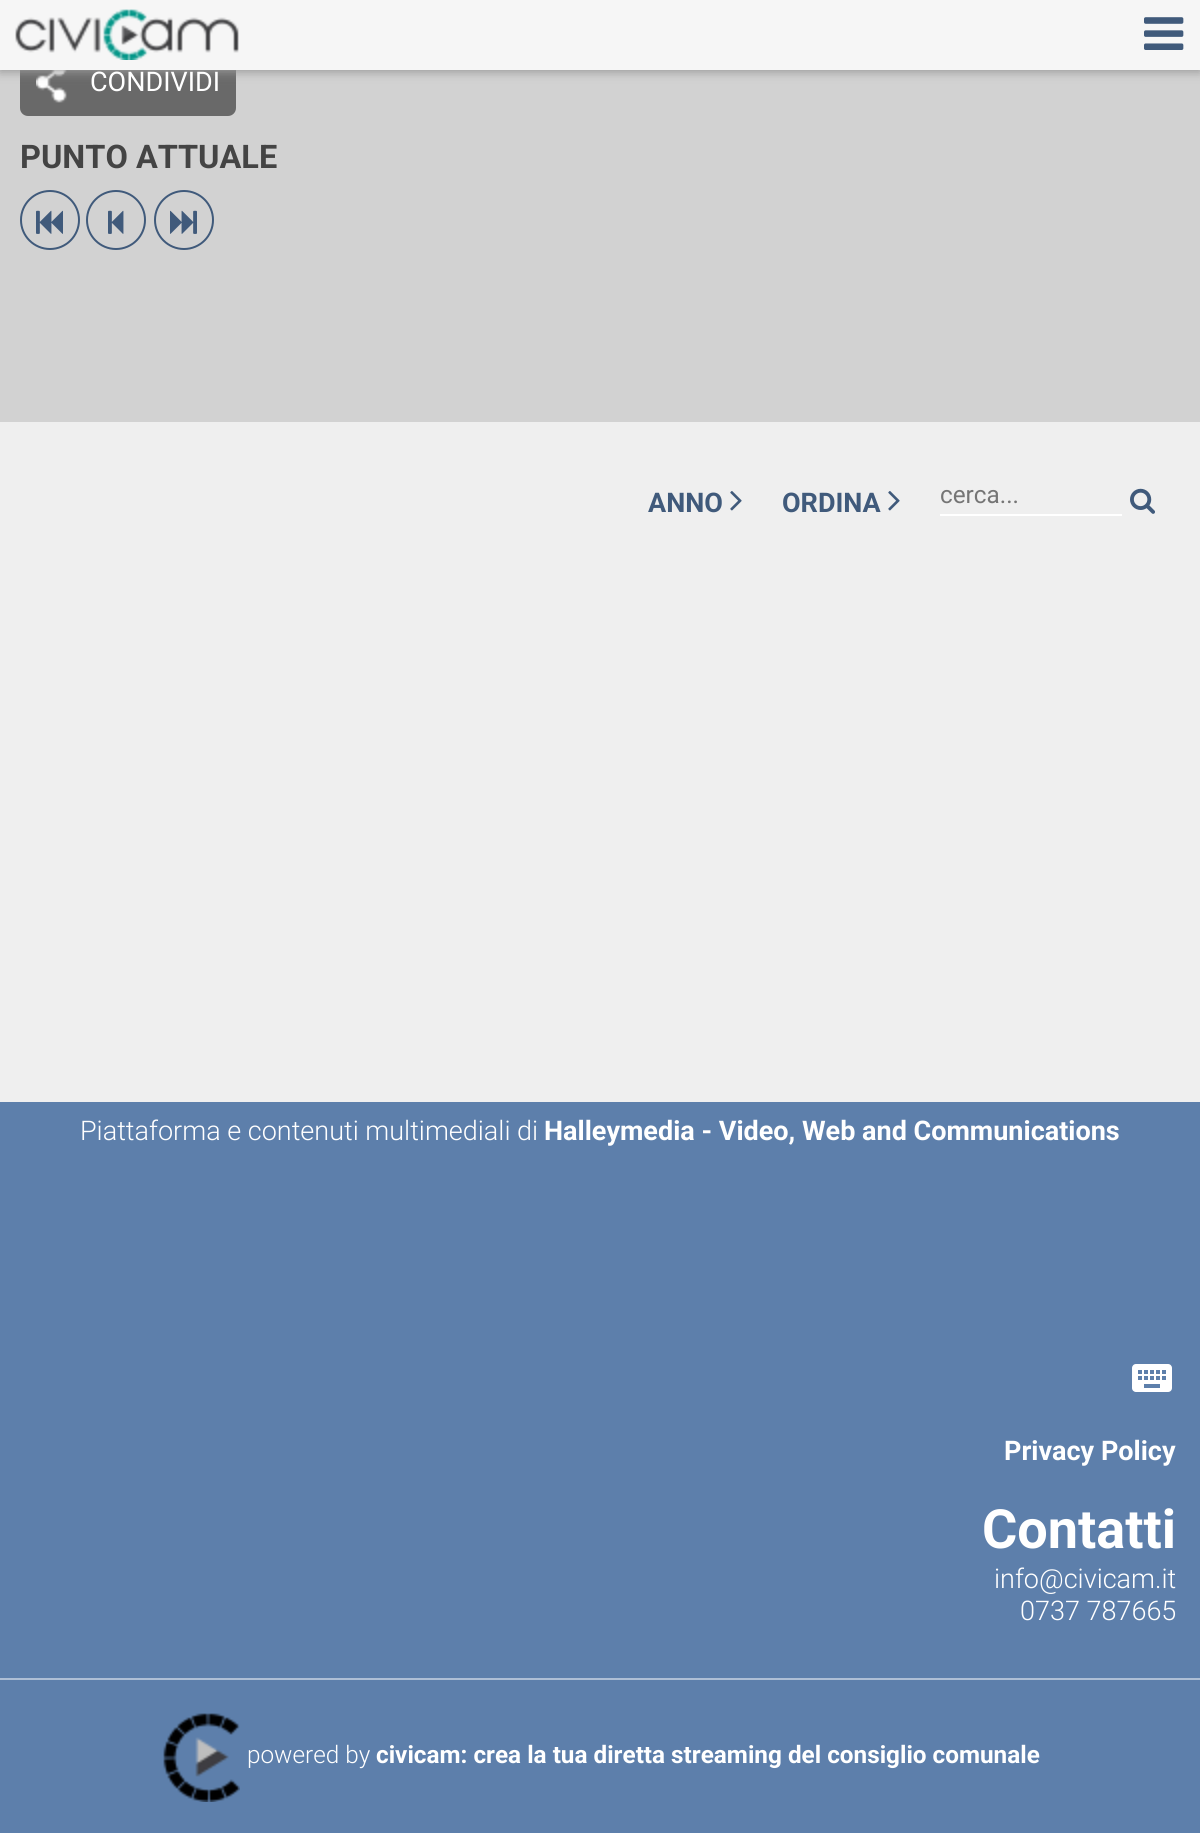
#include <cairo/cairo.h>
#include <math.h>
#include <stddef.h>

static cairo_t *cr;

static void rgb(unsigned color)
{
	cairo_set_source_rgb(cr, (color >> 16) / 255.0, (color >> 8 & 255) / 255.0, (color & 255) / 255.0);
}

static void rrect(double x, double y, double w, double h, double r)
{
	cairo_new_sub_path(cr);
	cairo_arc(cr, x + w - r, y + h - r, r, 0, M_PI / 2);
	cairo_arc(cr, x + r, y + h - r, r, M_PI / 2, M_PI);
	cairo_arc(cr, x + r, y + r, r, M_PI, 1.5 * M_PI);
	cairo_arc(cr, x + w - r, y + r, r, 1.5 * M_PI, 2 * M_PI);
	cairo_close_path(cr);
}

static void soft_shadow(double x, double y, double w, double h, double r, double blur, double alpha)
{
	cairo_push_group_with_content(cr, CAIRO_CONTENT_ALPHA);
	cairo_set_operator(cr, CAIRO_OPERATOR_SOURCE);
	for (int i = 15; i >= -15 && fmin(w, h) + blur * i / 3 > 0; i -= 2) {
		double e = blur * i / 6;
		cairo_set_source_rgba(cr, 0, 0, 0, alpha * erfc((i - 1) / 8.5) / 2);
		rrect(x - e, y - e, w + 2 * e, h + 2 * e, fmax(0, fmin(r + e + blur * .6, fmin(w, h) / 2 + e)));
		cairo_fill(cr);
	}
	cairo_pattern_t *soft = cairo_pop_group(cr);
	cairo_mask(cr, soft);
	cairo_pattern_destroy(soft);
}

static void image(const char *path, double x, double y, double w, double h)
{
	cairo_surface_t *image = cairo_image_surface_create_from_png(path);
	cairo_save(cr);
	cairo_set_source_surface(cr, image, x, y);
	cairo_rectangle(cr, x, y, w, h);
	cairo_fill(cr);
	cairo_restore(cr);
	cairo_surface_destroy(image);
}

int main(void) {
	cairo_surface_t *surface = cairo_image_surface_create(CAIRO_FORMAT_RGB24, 1200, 1833);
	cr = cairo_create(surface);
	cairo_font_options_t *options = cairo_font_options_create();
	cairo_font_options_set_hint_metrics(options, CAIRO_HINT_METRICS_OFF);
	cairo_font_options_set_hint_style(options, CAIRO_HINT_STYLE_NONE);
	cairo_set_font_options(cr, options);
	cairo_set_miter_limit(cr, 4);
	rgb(0xefefef);
	cairo_paint(cr);
	rgb(0xd2d2d2);
	cairo_rectangle(cr, 0, 70, 1200, 352);
	cairo_fill(cr);
	rgb(0x696969);
	rrect(20, 48, 216, 68, 8);
	cairo_fill(cr);
	image("img/3.png", 36, 70, 31, 33);
	rgb(0x999999);
	soft_shadow(0, 2, 1200, 70, 0, 5, 1);
	rgb(0xf6f6f6);
	cairo_rectangle(cr, 0, 0, 1200, 70);
	cairo_fill(cr);
	image("img/1.png", 15, 9, 224, 51);
	image("img/2.png", 1144, 17, 40, 33);
	cairo_arc(cr, 50, 220, 29, 0, 2 * M_PI);
	rgb(0x405a7b);
	cairo_stroke(cr);
	image("img/4.png", 36, 210, 27, 24);
	cairo_arc(cr, 116, 220, 29, 0, 2 * M_PI);
	cairo_stroke(cr);
	image("img/5.png", 108, 210, 16, 24);
	cairo_arc(cr, 184, 220, 29, 0, 2 * M_PI);
	cairo_stroke(cr);
	image("img/6.png", 170, 210, 27, 24);
	image("img/7.png", 730, 491, 12, 20);
	image("img/7.png", 888, 491, 12, 20);
	rgb(0xffffff);
	cairo_rectangle(cr, 940, 514, 182, 2);
	cairo_fill(cr);
	image("img/8.png", 1130, 488, 25, 26);
	rgb(0x5d7fab);
	cairo_rectangle(cr, 0, 1102, 1200, 731);
	cairo_fill(cr);
	image("img/9.png", 1132, 1364, 40, 28);
	rgb(0xaebfd5);
	cairo_rectangle(cr, 0, 1678, 1200, 2);
	cairo_fill(cr);
	image("img/10.png", 163, 1713, 77, 89);
	cairo_select_font_face(cr, "Roboto", CAIRO_FONT_SLANT_NORMAL, CAIRO_FONT_WEIGHT_NORMAL);
	cairo_set_font_size(cr, 27);
	rgb(0xffffff);
	cairo_move_to(cr, 90, 91);
	cairo_show_text(cr, "CONDIVIDI");
	cairo_select_font_face(cr, "Roboto", CAIRO_FONT_SLANT_NORMAL, CAIRO_FONT_WEIGHT_BOLD);
	cairo_set_font_size(cr, 32.5);
	rgb(0x444444);
	cairo_move_to(cr, 20, 168);
	cairo_show_text(cr, "PUNTO ATTUALE");
	cairo_set_font_size(cr, 27);
	rgb(0x405a7b);
	cairo_move_to(cr, 648, 512);
	cairo_show_text(cr, "ANNO");
	cairo_move_to(cr, 782, 512);
	cairo_show_text(cr, "ORDINA");
	cairo_select_font_face(cr, "Roboto", CAIRO_FONT_SLANT_NORMAL, CAIRO_FONT_WEIGHT_NORMAL);
	cairo_set_font_size(cr, 24.3);
	rgb(0x757575);
	cairo_move_to(cr, 940, 503);
	cairo_show_text(cr, "cerca...");
	cairo_select_font_face(cr, "Roboto Light", CAIRO_FONT_SLANT_NORMAL, CAIRO_FONT_WEIGHT_NORMAL);
	cairo_set_font_size(cr, 27);
	rgb(0xffffff);
	cairo_move_to(cr, 80, 1140);
	cairo_show_text(cr, "Piattaforma e contenuti multimediali di");
	cairo_select_font_face(cr, "Roboto", CAIRO_FONT_SLANT_NORMAL, CAIRO_FONT_WEIGHT_BOLD);
	cairo_move_to(cr, 544, 1140);
	cairo_show_text(cr, "Halleymedia - Video, Web and Communications");
	cairo_move_to(cr, 1004, 1460);
	cairo_show_text(cr, "Privacy Policy");
	cairo_set_font_size(cr, 54);
	cairo_move_to(cr, 982, 1548);
	cairo_show_text(cr, "Contatti");
	cairo_select_font_face(cr, "Roboto Light", CAIRO_FONT_SLANT_NORMAL, CAIRO_FONT_WEIGHT_NORMAL);
	cairo_set_font_size(cr, 27);
	cairo_move_to(cr, 994, 1588);
	cairo_show_text(cr, "info@civicam.it");
	cairo_move_to(cr, 1020, 1620);
	cairo_show_text(cr, "0737 787665");
	cairo_set_font_size(cr, 24.3);
	cairo_move_to(cr, 247, 1763);
	cairo_show_text(cr, "powered by");
	cairo_select_font_face(cr, "Roboto", CAIRO_FONT_SLANT_NORMAL, CAIRO_FONT_WEIGHT_BOLD);
	cairo_move_to(cr, 376, 1763);
	cairo_show_text(cr, "civicam: crea la tua diretta streaming del consiglio comunale");
	cairo_surface_write_to_png(surface, "page.png");
	cairo_font_options_destroy(options);
	cairo_destroy(cr);
	cairo_surface_destroy(surface);
	return 0;
}
